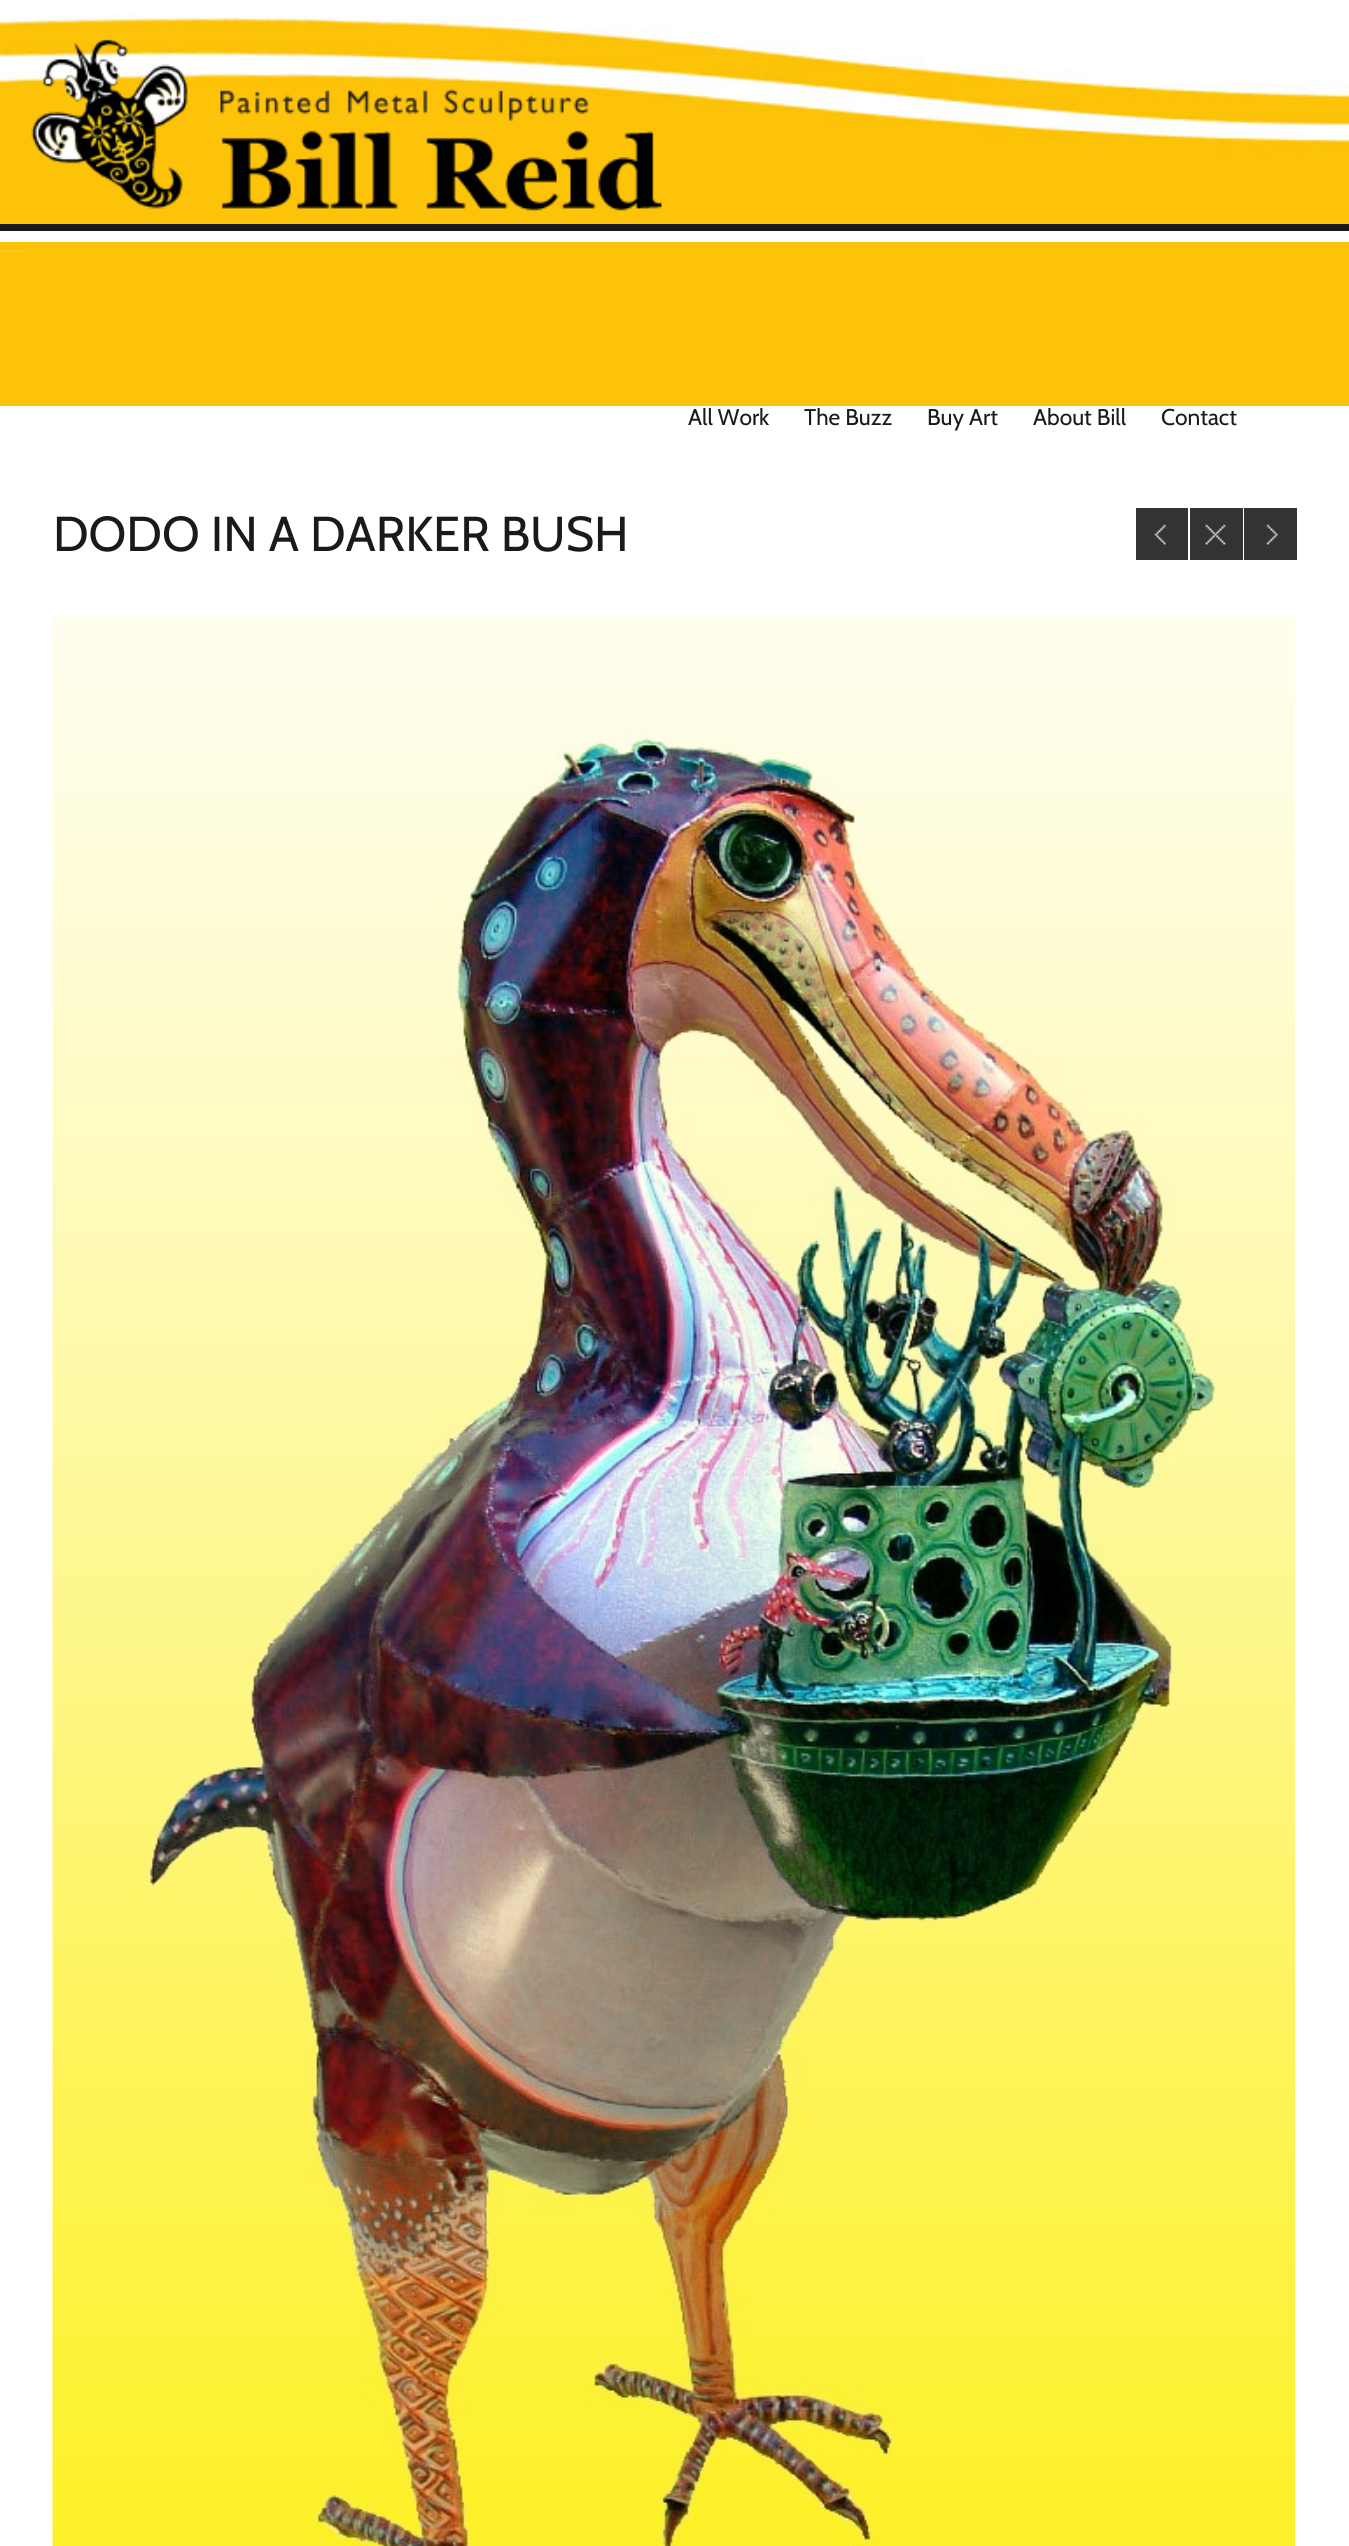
#include <cairo/cairo.h>
#include <math.h>
#include <stddef.h>

typedef struct { double x, y; const char *s; } line_t;
static cairo_t *cr;

static void rgb(unsigned color)
{
	cairo_set_source_rgb(cr, (color >> 16) / 255.0, (color >> 8 & 255) / 255.0, (color & 255) / 255.0);
}

static void image(const char *path, double x, double y, double w, double h)
{
	cairo_surface_t *image = cairo_image_surface_create_from_png(path);
	cairo_save(cr);
	cairo_set_source_surface(cr, image, x, y);
	cairo_rectangle(cr, x, y, w, h);
	cairo_fill(cr);
	cairo_restore(cr);
	cairo_surface_destroy(image);
}

int main(void) {
	cairo_surface_t *surface = cairo_image_surface_create(CAIRO_FORMAT_RGB24, 1349, 2546);
	cr = cairo_create(surface);
	cairo_font_options_t *options = cairo_font_options_create();
	cairo_font_options_set_hint_metrics(options, CAIRO_HINT_METRICS_OFF);
	cairo_font_options_set_hint_style(options, CAIRO_HINT_STYLE_NONE);
	cairo_set_font_options(cr, options);
	cairo_set_miter_limit(cr, 4);
	rgb(0xffffff);
	cairo_paint(cr);
	image("img/1.png", 0, 14, 1349, 392);
	rgb(0x1a1a1a);
	cairo_rectangle(cr, 0, 224, 1349, 7);
	cairo_fill(cr);
	rgb(0xffffff);
	cairo_rectangle(cr, 0, 231, 1349, 11);
	cairo_fill(cr);
	image("img/2.png", 31, 39, 631, 172);
	rgb(0x333333);
	cairo_rectangle(cr, 1136, 508, 52, 52);
	cairo_fill(cr);
	image("img/3.png", 1154, 524, 12, 21);
	cairo_rectangle(cr, 1190, 508, 53, 52);
	cairo_fill(cr);
	image("img/4.png", 1205, 524, 21, 21);
	cairo_rectangle(cr, 1244, 508, 53, 52);
	cairo_fill(cr);
	image("img/5.png", 1266, 524, 12, 21);
	image("img/6.png", 52, 616, 1243, 1930);
	cairo_select_font_face(cr, "Cabin", CAIRO_FONT_SLANT_NORMAL, CAIRO_FONT_WEIGHT_NORMAL);
	cairo_set_font_size(cr, 22.75);
	rgb(0x1a1a1a);
	{
		static const line_t items[] = {
			{688, 425, "All Work"},
			{804, 425, "The Buzz"},
			{927, 425, "Buy Art"},
			{1033, 425, "About Bill"},
			{1161, 425, "Contact"},
		};
		for (size_t i = 0; i < sizeof items / sizeof *items; i++) {
			cairo_move_to(cr, items[i].x, items[i].y);
			cairo_show_text(cr, items[i].s);
		}
	}
	cairo_set_font_size(cr, 49);
	cairo_move_to(cr, 53, 551);
	cairo_show_text(cr, "DODO IN A DARKER BUSH");
	cairo_surface_write_to_png(surface, "page.png");
	cairo_font_options_destroy(options);
	cairo_destroy(cr);
	cairo_surface_destroy(surface);
	return 0;
}
